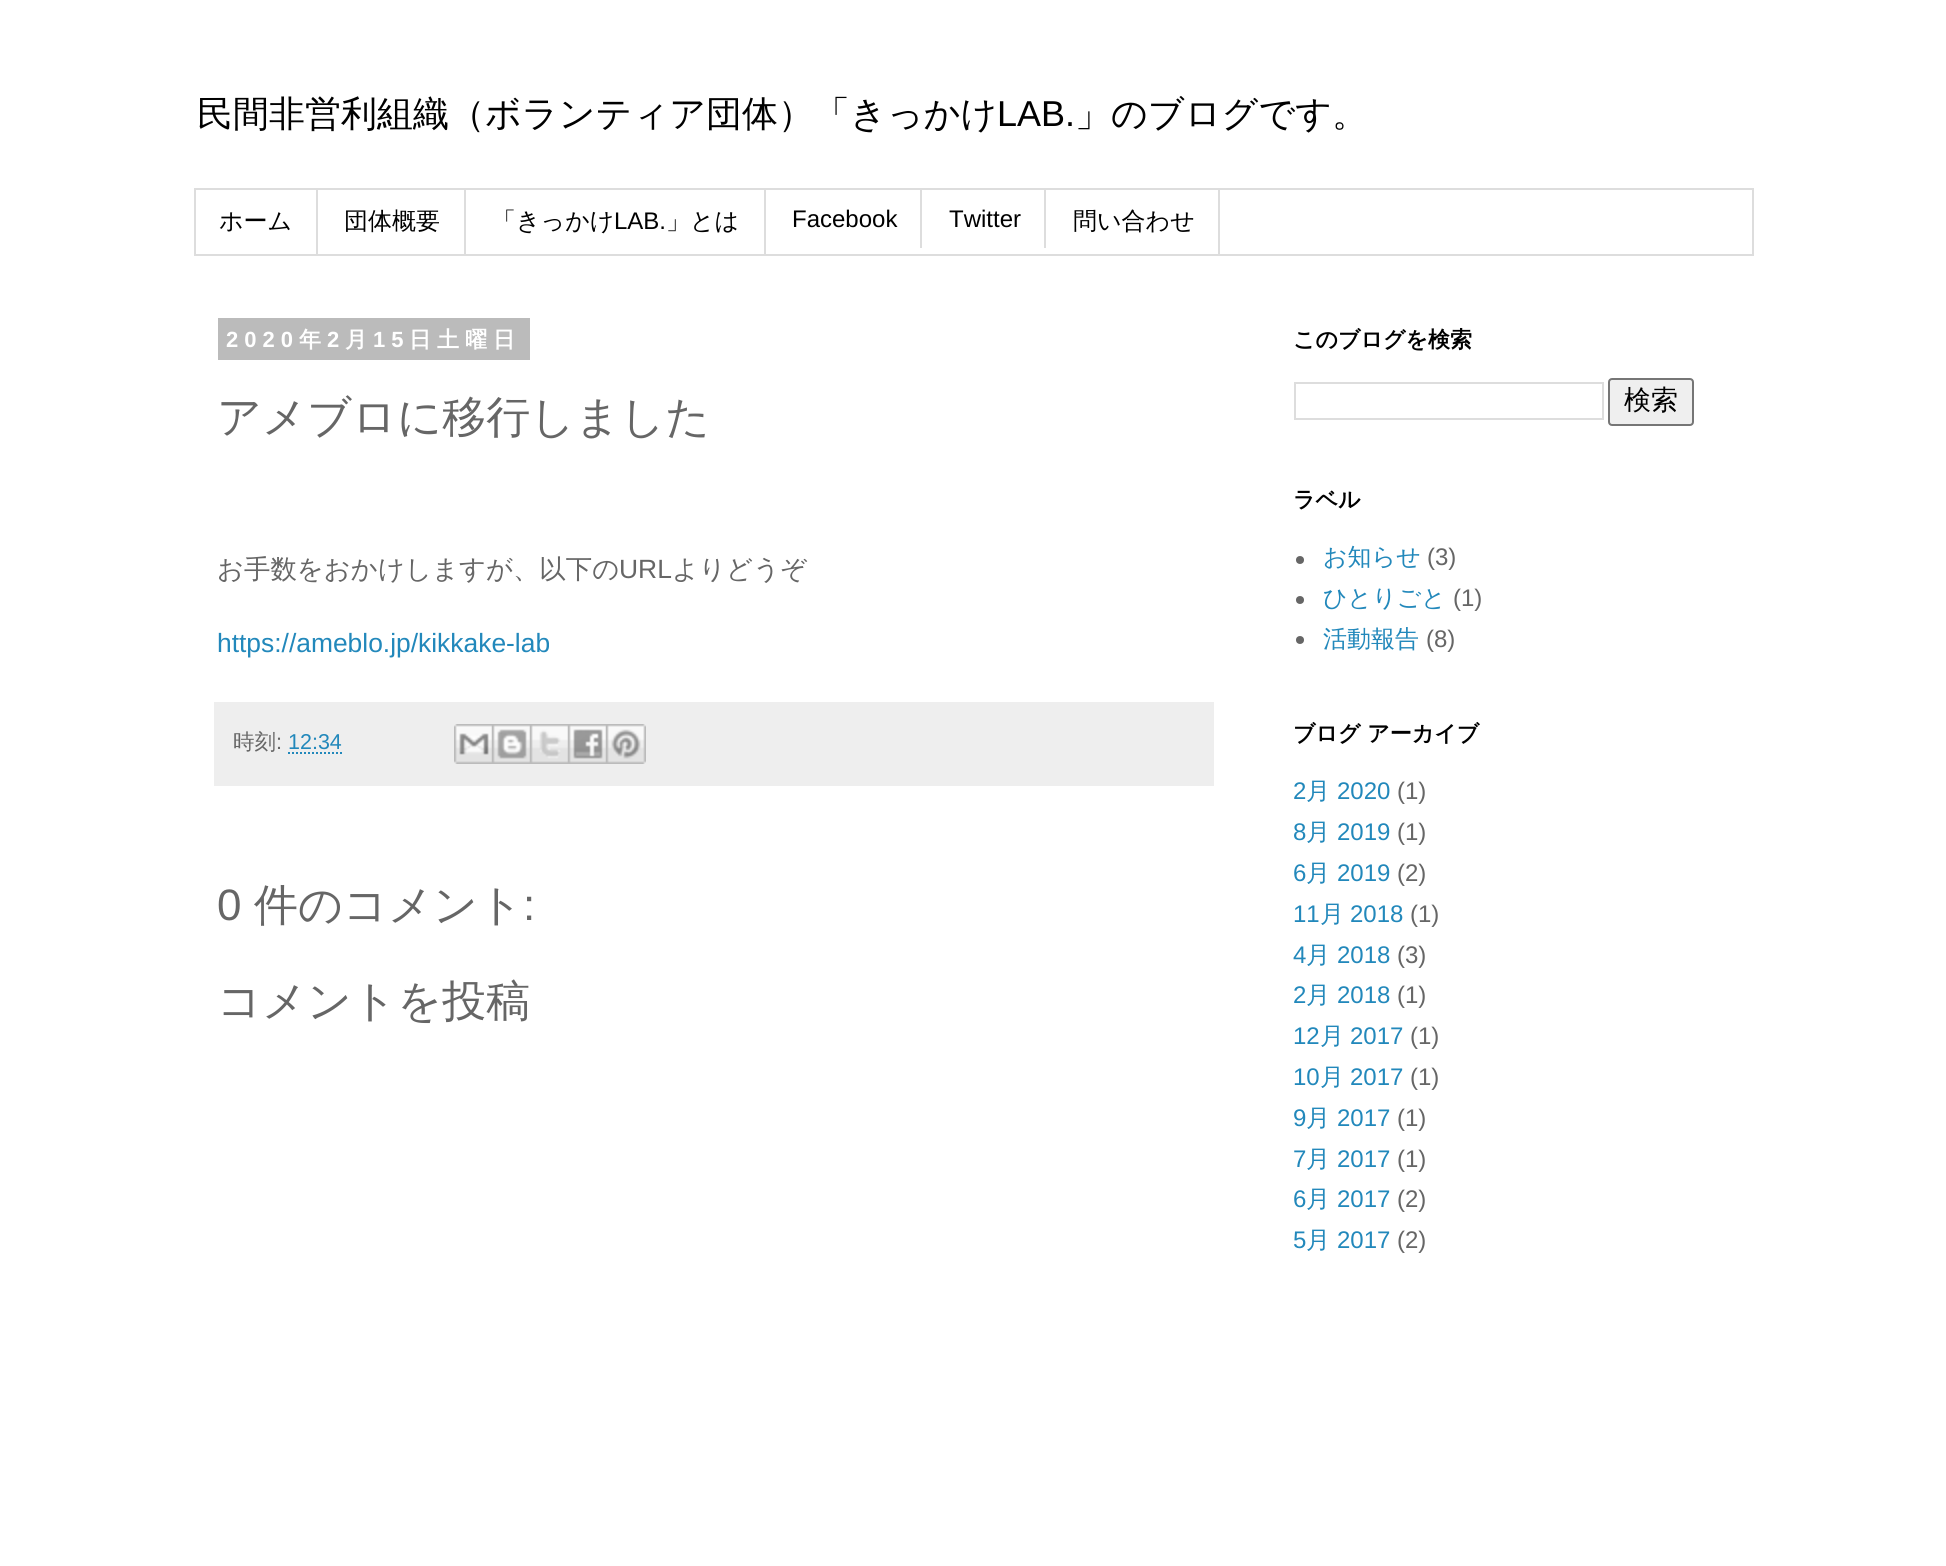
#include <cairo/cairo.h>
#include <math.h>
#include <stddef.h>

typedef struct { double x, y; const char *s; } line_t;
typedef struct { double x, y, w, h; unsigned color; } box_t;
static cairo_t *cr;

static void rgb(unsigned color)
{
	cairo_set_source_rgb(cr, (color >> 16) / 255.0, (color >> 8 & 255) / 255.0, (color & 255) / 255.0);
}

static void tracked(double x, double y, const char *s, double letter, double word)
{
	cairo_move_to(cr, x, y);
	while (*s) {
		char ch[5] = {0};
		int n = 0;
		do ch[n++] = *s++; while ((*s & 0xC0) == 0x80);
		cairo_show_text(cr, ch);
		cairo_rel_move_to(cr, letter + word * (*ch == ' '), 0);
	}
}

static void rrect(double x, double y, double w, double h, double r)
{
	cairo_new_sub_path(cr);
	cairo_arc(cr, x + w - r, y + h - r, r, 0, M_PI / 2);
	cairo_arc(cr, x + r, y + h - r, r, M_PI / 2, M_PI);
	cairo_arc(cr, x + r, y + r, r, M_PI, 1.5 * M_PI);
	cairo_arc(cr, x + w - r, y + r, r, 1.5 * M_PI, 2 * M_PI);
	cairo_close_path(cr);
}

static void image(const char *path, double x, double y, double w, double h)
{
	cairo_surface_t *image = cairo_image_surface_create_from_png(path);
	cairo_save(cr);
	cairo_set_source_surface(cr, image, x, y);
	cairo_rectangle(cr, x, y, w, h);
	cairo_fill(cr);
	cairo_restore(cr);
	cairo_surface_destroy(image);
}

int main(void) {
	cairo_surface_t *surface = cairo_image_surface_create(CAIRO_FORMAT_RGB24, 1946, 1566);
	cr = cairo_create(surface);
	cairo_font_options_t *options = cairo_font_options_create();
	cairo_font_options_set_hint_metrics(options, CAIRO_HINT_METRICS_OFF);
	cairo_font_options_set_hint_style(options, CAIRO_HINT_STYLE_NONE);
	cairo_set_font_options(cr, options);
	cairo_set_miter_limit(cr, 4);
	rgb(0xffffff);
	cairo_paint(cr);
	cairo_rectangle(cr, 195, 189, 1558, 66);
	rgb(0xdddddd);
	cairo_stroke(cr);
	{
		static const box_t items[] = {
			{316, 190, 2, 64, 0xdddddd},
			{464, 190, 2, 64, 0xdddddd},
			{764, 190, 2, 64, 0xdddddd},
			{920, 190, 2, 58, 0xdddddd},
			{1044, 190, 2, 58, 0xdddddd},
			{1218, 190, 2, 64, 0xdddddd},
			{218, 318, 312, 42, 0xbbbbbb},
			{214, 702, 1000, 84, 0xeeeeee},
		};
		for (size_t i = 0; i < sizeof items / sizeof *items; i++) {
			rgb(items[i].color);
			cairo_rectangle(cr, items[i].x, items[i].y, items[i].w, items[i].h);
			cairo_fill(cr);
		}
	}
	cairo_new_path(cr);
	cairo_move_to(cr, 288, 753);
	cairo_line_to(cr, 342, 753);
	rgb(0x2288bb);
	cairo_set_dash(cr, (double[]){2, 2}, 2, 0);
	cairo_stroke(cr);
	image("img/1.png", 454, 724, 38, 40);
	image("img/2.png", 492, 724, 38, 40);
	image("img/3.png", 530, 724, 38, 40);
	image("img/4.png", 568, 724, 38, 40);
	image("img/5.png", 606, 724, 40, 40);
	cairo_rectangle(cr, 1295, 383, 308, 36);
	rgb(0xdddddd);
	cairo_set_dash(cr, NULL, 0, 0);
	cairo_stroke(cr);
	rgb(0xefefef);
	rrect(1609, 379, 84, 46, 3);
	cairo_fill_preserve(cr);
	rgb(0x767676);
	cairo_stroke(cr);
	rgb(0x666666);
	cairo_arc(cr, 1300, 560, 4, 0, 2 * M_PI);
	cairo_fill(cr);
	cairo_arc(cr, 1300, 600, 4, 0, 2 * M_PI);
	cairo_fill(cr);
	cairo_arc(cr, 1300, 640, 4, 0, 2 * M_PI);
	cairo_fill(cr);
	cairo_select_font_face(cr, "WenQuanYi Zen Hei Medium", CAIRO_FONT_SLANT_NORMAL, CAIRO_FONT_WEIGHT_NORMAL);
	cairo_set_font_size(cr, 36);
	rgb(0x000000);
	cairo_move_to(cr, 197, 126);
	cairo_show_text(cr, "民間非営利組織（ボランティア団体）「きっかけ");
	cairo_select_font_face(cr, "Liberation Sans", CAIRO_FONT_SLANT_NORMAL, CAIRO_FONT_WEIGHT_NORMAL);
	cairo_move_to(cr, 997, 126);
	cairo_show_text(cr, "LAB.");
	cairo_select_font_face(cr, "WenQuanYi Zen Hei Medium", CAIRO_FONT_SLANT_NORMAL, CAIRO_FONT_WEIGHT_NORMAL);
	cairo_move_to(cr, 1075, 126);
	cairo_show_text(cr, "」のブログです。");
	cairo_set_font_size(cr, 24);
	{
		static const line_t items[] = {
			{219, 229, "ホーム"},
			{344, 229, "団体概要"},
			{492, 229, "「きっかけ"},
		};
		for (size_t i = 0; i < sizeof items / sizeof *items; i++) {
			cairo_move_to(cr, items[i].x, items[i].y);
			cairo_show_text(cr, items[i].s);
		}
	}
	cairo_select_font_face(cr, "Liberation Sans", CAIRO_FONT_SLANT_NORMAL, CAIRO_FONT_WEIGHT_NORMAL);
	cairo_move_to(cr, 614, 229);
	cairo_show_text(cr, "LAB.");
	cairo_select_font_face(cr, "WenQuanYi Zen Hei Medium", CAIRO_FONT_SLANT_NORMAL, CAIRO_FONT_WEIGHT_NORMAL);
	cairo_move_to(cr, 666, 229);
	cairo_show_text(cr, "」とは");
	cairo_select_font_face(cr, "Liberation Sans", CAIRO_FONT_SLANT_NORMAL, CAIRO_FONT_WEIGHT_NORMAL);
	cairo_move_to(cr, 792, 227);
	cairo_show_text(cr, "Facebook");
	cairo_move_to(cr, 949, 227);
	cairo_show_text(cr, "Twitter");
	cairo_select_font_face(cr, "WenQuanYi Zen Hei Medium", CAIRO_FONT_SLANT_NORMAL, CAIRO_FONT_WEIGHT_NORMAL);
	cairo_move_to(cr, 1073, 229);
	cairo_show_text(cr, "問い合わせ");
	cairo_select_font_face(cr, "Liberation Sans", CAIRO_FONT_SLANT_NORMAL, CAIRO_FONT_WEIGHT_BOLD);
	cairo_set_font_size(cr, 22);
	rgb(0xffffff);
	tracked(226, 347, "2020", 6, 0);
	cairo_select_font_face(cr, "WenQuanYi Zen Hei", CAIRO_FONT_SLANT_NORMAL, CAIRO_FONT_WEIGHT_BOLD);
	tracked(299, 347, "年", 6, 0);
	cairo_select_font_face(cr, "Liberation Sans", CAIRO_FONT_SLANT_NORMAL, CAIRO_FONT_WEIGHT_BOLD);
	tracked(327, 347, "2", 6, 0);
	cairo_select_font_face(cr, "WenQuanYi Zen Hei", CAIRO_FONT_SLANT_NORMAL, CAIRO_FONT_WEIGHT_BOLD);
	tracked(345, 347, "月", 6, 0);
	cairo_select_font_face(cr, "Liberation Sans", CAIRO_FONT_SLANT_NORMAL, CAIRO_FONT_WEIGHT_BOLD);
	tracked(373, 347, "15", 6, 0);
	cairo_select_font_face(cr, "WenQuanYi Zen Hei", CAIRO_FONT_SLANT_NORMAL, CAIRO_FONT_WEIGHT_BOLD);
	tracked(409, 347, "日土曜日", 6, 0);
	cairo_select_font_face(cr, "WenQuanYi Zen Hei Medium", CAIRO_FONT_SLANT_NORMAL, CAIRO_FONT_WEIGHT_NORMAL);
	cairo_set_font_size(cr, 44);
	rgb(0x666666);
	cairo_move_to(cr, 217, 432);
	cairo_show_text(cr, "アメブロに移行しました");
	cairo_set_font_size(cr, 26.4);
	cairo_move_to(cr, 217, 578);
	cairo_show_text(cr, "お手数をおかけしますが、以下の");
	cairo_select_font_face(cr, "Liberation Sans", CAIRO_FONT_SLANT_NORMAL, CAIRO_FONT_WEIGHT_NORMAL);
	cairo_move_to(cr, 619, 578);
	cairo_show_text(cr, "URL");
	cairo_select_font_face(cr, "WenQuanYi Zen Hei Medium", CAIRO_FONT_SLANT_NORMAL, CAIRO_FONT_WEIGHT_NORMAL);
	cairo_move_to(cr, 672, 578);
	cairo_show_text(cr, "よりどうぞ");
	cairo_select_font_face(cr, "Liberation Sans", CAIRO_FONT_SLANT_NORMAL, CAIRO_FONT_WEIGHT_NORMAL);
	rgb(0x2288bb);
	cairo_move_to(cr, 217, 652);
	cairo_show_text(cr, "https://ameblo.jp/kikkake-lab");
	cairo_select_font_face(cr, "WenQuanYi Zen Hei Medium", CAIRO_FONT_SLANT_NORMAL, CAIRO_FONT_WEIGHT_NORMAL);
	cairo_set_font_size(cr, 21.5);
	rgb(0x666666);
	cairo_move_to(cr, 233, 749);
	cairo_show_text(cr, "時刻");
	cairo_select_font_face(cr, "Liberation Sans", CAIRO_FONT_SLANT_NORMAL, CAIRO_FONT_WEIGHT_NORMAL);
	cairo_move_to(cr, 276, 749);
	cairo_show_text(cr, ":");
	rgb(0x2288bb);
	cairo_move_to(cr, 288, 749);
	cairo_show_text(cr, "12:34");
	cairo_set_font_size(cr, 44);
	rgb(0x666666);
	cairo_move_to(cr, 217, 920);
	cairo_show_text(cr, "0");
	cairo_select_font_face(cr, "WenQuanYi Zen Hei Medium", CAIRO_FONT_SLANT_NORMAL, CAIRO_FONT_WEIGHT_NORMAL);
	cairo_move_to(cr, 254, 920);
	cairo_show_text(cr, "件のコメント");
	cairo_select_font_face(cr, "Liberation Sans", CAIRO_FONT_SLANT_NORMAL, CAIRO_FONT_WEIGHT_NORMAL);
	cairo_move_to(cr, 523, 920);
	cairo_show_text(cr, ":");
	cairo_select_font_face(cr, "WenQuanYi Zen Hei Medium", CAIRO_FONT_SLANT_NORMAL, CAIRO_FONT_WEIGHT_NORMAL);
	cairo_move_to(cr, 217, 1016);
	cairo_show_text(cr, "コメントを投稿");
	cairo_select_font_face(cr, "WenQuanYi Zen Hei", CAIRO_FONT_SLANT_NORMAL, CAIRO_FONT_WEIGHT_BOLD);
	cairo_set_font_size(cr, 22);
	rgb(0x000000);
	cairo_move_to(cr, 1293, 347);
	cairo_show_text(cr, "このブログを検索");
	cairo_select_font_face(cr, "WenQuanYi Zen Hei Medium", CAIRO_FONT_SLANT_NORMAL, CAIRO_FONT_WEIGHT_NORMAL);
	cairo_set_font_size(cr, 27);
	cairo_move_to(cr, 1624, 409);
	cairo_show_text(cr, "検索");
	cairo_select_font_face(cr, "WenQuanYi Zen Hei", CAIRO_FONT_SLANT_NORMAL, CAIRO_FONT_WEIGHT_BOLD);
	cairo_set_font_size(cr, 22);
	cairo_move_to(cr, 1293, 507);
	cairo_show_text(cr, "ラベル");
	cairo_select_font_face(cr, "WenQuanYi Zen Hei Medium", CAIRO_FONT_SLANT_NORMAL, CAIRO_FONT_WEIGHT_NORMAL);
	cairo_set_font_size(cr, 24);
	rgb(0x2288bb);
	cairo_move_to(cr, 1323, 565);
	cairo_show_text(cr, "お知らせ");
	cairo_select_font_face(cr, "Liberation Sans", CAIRO_FONT_SLANT_NORMAL, CAIRO_FONT_WEIGHT_NORMAL);
	rgb(0x666666);
	cairo_move_to(cr, 1427, 565);
	cairo_show_text(cr, "(3)");
	cairo_select_font_face(cr, "WenQuanYi Zen Hei Medium", CAIRO_FONT_SLANT_NORMAL, CAIRO_FONT_WEIGHT_NORMAL);
	rgb(0x2288bb);
	cairo_move_to(cr, 1323, 606);
	cairo_show_text(cr, "ひとりごと");
	cairo_select_font_face(cr, "Liberation Sans", CAIRO_FONT_SLANT_NORMAL, CAIRO_FONT_WEIGHT_NORMAL);
	rgb(0x666666);
	cairo_move_to(cr, 1453, 606);
	cairo_show_text(cr, "(1)");
	cairo_select_font_face(cr, "WenQuanYi Zen Hei Medium", CAIRO_FONT_SLANT_NORMAL, CAIRO_FONT_WEIGHT_NORMAL);
	rgb(0x2288bb);
	cairo_move_to(cr, 1323, 647);
	cairo_show_text(cr, "活動報告");
	cairo_select_font_face(cr, "Liberation Sans", CAIRO_FONT_SLANT_NORMAL, CAIRO_FONT_WEIGHT_NORMAL);
	rgb(0x666666);
	cairo_move_to(cr, 1426, 647);
	cairo_show_text(cr, "(8)");
	cairo_select_font_face(cr, "WenQuanYi Zen Hei", CAIRO_FONT_SLANT_NORMAL, CAIRO_FONT_WEIGHT_BOLD);
	cairo_set_font_size(cr, 22);
	rgb(0x000000);
	cairo_move_to(cr, 1293, 741);
	cairo_show_text(cr, "ブログ アーカイブ");
	cairo_select_font_face(cr, "Liberation Sans", CAIRO_FONT_SLANT_NORMAL, CAIRO_FONT_WEIGHT_NORMAL);
	cairo_set_font_size(cr, 24);
	rgb(0x2288bb);
	cairo_move_to(cr, 1293, 799);
	cairo_show_text(cr, "2");
	cairo_select_font_face(cr, "WenQuanYi Zen Hei Medium", CAIRO_FONT_SLANT_NORMAL, CAIRO_FONT_WEIGHT_NORMAL);
	cairo_move_to(cr, 1306, 799);
	cairo_show_text(cr, "月");
	cairo_select_font_face(cr, "Liberation Sans", CAIRO_FONT_SLANT_NORMAL, CAIRO_FONT_WEIGHT_NORMAL);
	cairo_move_to(cr, 1337, 799);
	cairo_show_text(cr, "2020");
	rgb(0x666666);
	cairo_move_to(cr, 1397, 799);
	cairo_show_text(cr, "(1)");
	rgb(0x2288bb);
	cairo_move_to(cr, 1293, 840);
	cairo_show_text(cr, "8");
	cairo_select_font_face(cr, "WenQuanYi Zen Hei Medium", CAIRO_FONT_SLANT_NORMAL, CAIRO_FONT_WEIGHT_NORMAL);
	cairo_move_to(cr, 1306, 840);
	cairo_show_text(cr, "月");
	cairo_select_font_face(cr, "Liberation Sans", CAIRO_FONT_SLANT_NORMAL, CAIRO_FONT_WEIGHT_NORMAL);
	cairo_move_to(cr, 1337, 840);
	cairo_show_text(cr, "2019");
	rgb(0x666666);
	cairo_move_to(cr, 1397, 840);
	cairo_show_text(cr, "(1)");
	rgb(0x2288bb);
	cairo_move_to(cr, 1293, 881);
	cairo_show_text(cr, "6");
	cairo_select_font_face(cr, "WenQuanYi Zen Hei Medium", CAIRO_FONT_SLANT_NORMAL, CAIRO_FONT_WEIGHT_NORMAL);
	cairo_move_to(cr, 1306, 881);
	cairo_show_text(cr, "月");
	cairo_select_font_face(cr, "Liberation Sans", CAIRO_FONT_SLANT_NORMAL, CAIRO_FONT_WEIGHT_NORMAL);
	cairo_move_to(cr, 1337, 881);
	cairo_show_text(cr, "2019");
	rgb(0x666666);
	cairo_move_to(cr, 1397, 881);
	cairo_show_text(cr, "(2)");
	rgb(0x2288bb);
	cairo_move_to(cr, 1293, 922);
	cairo_show_text(cr, "11");
	cairo_select_font_face(cr, "WenQuanYi Zen Hei Medium", CAIRO_FONT_SLANT_NORMAL, CAIRO_FONT_WEIGHT_NORMAL);
	cairo_move_to(cr, 1320, 922);
	cairo_show_text(cr, "月");
	cairo_select_font_face(cr, "Liberation Sans", CAIRO_FONT_SLANT_NORMAL, CAIRO_FONT_WEIGHT_NORMAL);
	cairo_move_to(cr, 1350, 922);
	cairo_show_text(cr, "2018");
	rgb(0x666666);
	cairo_move_to(cr, 1410, 922);
	cairo_show_text(cr, "(1)");
	rgb(0x2288bb);
	cairo_move_to(cr, 1293, 963);
	cairo_show_text(cr, "4");
	cairo_select_font_face(cr, "WenQuanYi Zen Hei Medium", CAIRO_FONT_SLANT_NORMAL, CAIRO_FONT_WEIGHT_NORMAL);
	cairo_move_to(cr, 1306, 963);
	cairo_show_text(cr, "月");
	cairo_select_font_face(cr, "Liberation Sans", CAIRO_FONT_SLANT_NORMAL, CAIRO_FONT_WEIGHT_NORMAL);
	cairo_move_to(cr, 1337, 963);
	cairo_show_text(cr, "2018");
	rgb(0x666666);
	cairo_move_to(cr, 1397, 963);
	cairo_show_text(cr, "(3)");
	rgb(0x2288bb);
	cairo_move_to(cr, 1293, 1003);
	cairo_show_text(cr, "2");
	cairo_select_font_face(cr, "WenQuanYi Zen Hei Medium", CAIRO_FONT_SLANT_NORMAL, CAIRO_FONT_WEIGHT_NORMAL);
	cairo_move_to(cr, 1306, 1003);
	cairo_show_text(cr, "月");
	cairo_select_font_face(cr, "Liberation Sans", CAIRO_FONT_SLANT_NORMAL, CAIRO_FONT_WEIGHT_NORMAL);
	cairo_move_to(cr, 1337, 1003);
	cairo_show_text(cr, "2018");
	rgb(0x666666);
	cairo_move_to(cr, 1397, 1003);
	cairo_show_text(cr, "(1)");
	rgb(0x2288bb);
	cairo_move_to(cr, 1293, 1044);
	cairo_show_text(cr, "12");
	cairo_select_font_face(cr, "WenQuanYi Zen Hei Medium", CAIRO_FONT_SLANT_NORMAL, CAIRO_FONT_WEIGHT_NORMAL);
	cairo_move_to(cr, 1320, 1044);
	cairo_show_text(cr, "月");
	cairo_select_font_face(cr, "Liberation Sans", CAIRO_FONT_SLANT_NORMAL, CAIRO_FONT_WEIGHT_NORMAL);
	cairo_move_to(cr, 1350, 1044);
	cairo_show_text(cr, "2017");
	rgb(0x666666);
	cairo_move_to(cr, 1410, 1044);
	cairo_show_text(cr, "(1)");
	rgb(0x2288bb);
	cairo_move_to(cr, 1293, 1085);
	cairo_show_text(cr, "10");
	cairo_select_font_face(cr, "WenQuanYi Zen Hei Medium", CAIRO_FONT_SLANT_NORMAL, CAIRO_FONT_WEIGHT_NORMAL);
	cairo_move_to(cr, 1320, 1085);
	cairo_show_text(cr, "月");
	cairo_select_font_face(cr, "Liberation Sans", CAIRO_FONT_SLANT_NORMAL, CAIRO_FONT_WEIGHT_NORMAL);
	cairo_move_to(cr, 1350, 1085);
	cairo_show_text(cr, "2017");
	rgb(0x666666);
	cairo_move_to(cr, 1410, 1085);
	cairo_show_text(cr, "(1)");
	rgb(0x2288bb);
	cairo_move_to(cr, 1293, 1126);
	cairo_show_text(cr, "9");
	cairo_select_font_face(cr, "WenQuanYi Zen Hei Medium", CAIRO_FONT_SLANT_NORMAL, CAIRO_FONT_WEIGHT_NORMAL);
	cairo_move_to(cr, 1306, 1126);
	cairo_show_text(cr, "月");
	cairo_select_font_face(cr, "Liberation Sans", CAIRO_FONT_SLANT_NORMAL, CAIRO_FONT_WEIGHT_NORMAL);
	cairo_move_to(cr, 1337, 1126);
	cairo_show_text(cr, "2017");
	rgb(0x666666);
	cairo_move_to(cr, 1397, 1126);
	cairo_show_text(cr, "(1)");
	rgb(0x2288bb);
	cairo_move_to(cr, 1293, 1167);
	cairo_show_text(cr, "7");
	cairo_select_font_face(cr, "WenQuanYi Zen Hei Medium", CAIRO_FONT_SLANT_NORMAL, CAIRO_FONT_WEIGHT_NORMAL);
	cairo_move_to(cr, 1306, 1167);
	cairo_show_text(cr, "月");
	cairo_select_font_face(cr, "Liberation Sans", CAIRO_FONT_SLANT_NORMAL, CAIRO_FONT_WEIGHT_NORMAL);
	cairo_move_to(cr, 1337, 1167);
	cairo_show_text(cr, "2017");
	rgb(0x666666);
	cairo_move_to(cr, 1397, 1167);
	cairo_show_text(cr, "(1)");
	rgb(0x2288bb);
	cairo_move_to(cr, 1293, 1207);
	cairo_show_text(cr, "6");
	cairo_select_font_face(cr, "WenQuanYi Zen Hei Medium", CAIRO_FONT_SLANT_NORMAL, CAIRO_FONT_WEIGHT_NORMAL);
	cairo_move_to(cr, 1306, 1207);
	cairo_show_text(cr, "月");
	cairo_select_font_face(cr, "Liberation Sans", CAIRO_FONT_SLANT_NORMAL, CAIRO_FONT_WEIGHT_NORMAL);
	cairo_move_to(cr, 1337, 1207);
	cairo_show_text(cr, "2017");
	rgb(0x666666);
	cairo_move_to(cr, 1397, 1207);
	cairo_show_text(cr, "(2)");
	rgb(0x2288bb);
	cairo_move_to(cr, 1293, 1248);
	cairo_show_text(cr, "5");
	cairo_select_font_face(cr, "WenQuanYi Zen Hei Medium", CAIRO_FONT_SLANT_NORMAL, CAIRO_FONT_WEIGHT_NORMAL);
	cairo_move_to(cr, 1306, 1248);
	cairo_show_text(cr, "月");
	cairo_select_font_face(cr, "Liberation Sans", CAIRO_FONT_SLANT_NORMAL, CAIRO_FONT_WEIGHT_NORMAL);
	cairo_move_to(cr, 1337, 1248);
	cairo_show_text(cr, "2017");
	rgb(0x666666);
	cairo_move_to(cr, 1397, 1248);
	cairo_show_text(cr, "(2)");
	cairo_surface_write_to_png(surface, "page.png");
	cairo_font_options_destroy(options);
	cairo_destroy(cr);
	cairo_surface_destroy(surface);
	return 0;
}
